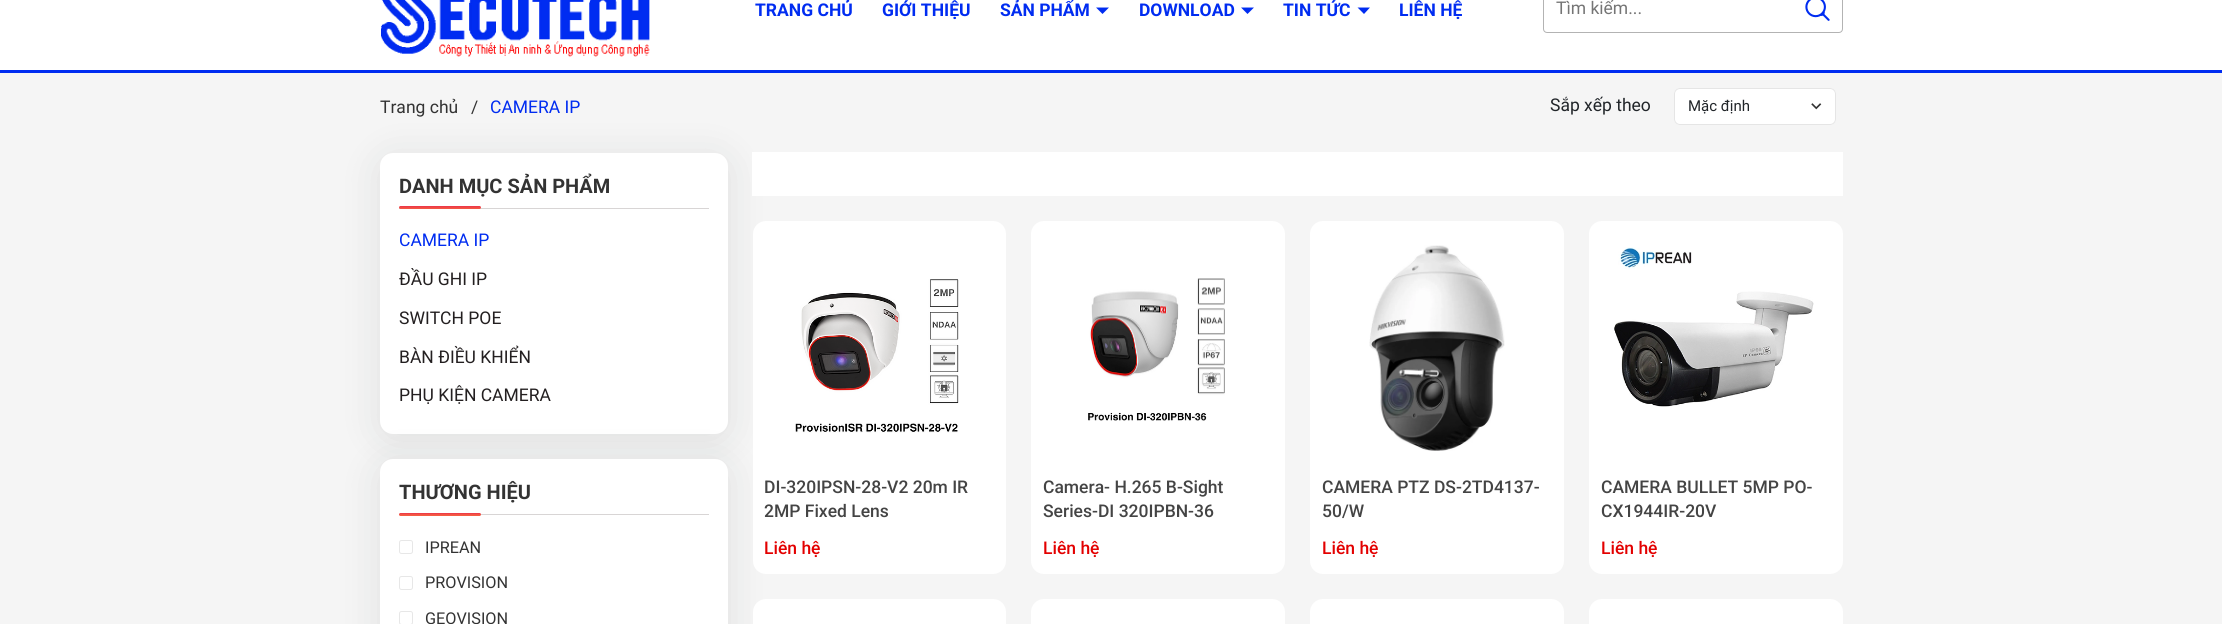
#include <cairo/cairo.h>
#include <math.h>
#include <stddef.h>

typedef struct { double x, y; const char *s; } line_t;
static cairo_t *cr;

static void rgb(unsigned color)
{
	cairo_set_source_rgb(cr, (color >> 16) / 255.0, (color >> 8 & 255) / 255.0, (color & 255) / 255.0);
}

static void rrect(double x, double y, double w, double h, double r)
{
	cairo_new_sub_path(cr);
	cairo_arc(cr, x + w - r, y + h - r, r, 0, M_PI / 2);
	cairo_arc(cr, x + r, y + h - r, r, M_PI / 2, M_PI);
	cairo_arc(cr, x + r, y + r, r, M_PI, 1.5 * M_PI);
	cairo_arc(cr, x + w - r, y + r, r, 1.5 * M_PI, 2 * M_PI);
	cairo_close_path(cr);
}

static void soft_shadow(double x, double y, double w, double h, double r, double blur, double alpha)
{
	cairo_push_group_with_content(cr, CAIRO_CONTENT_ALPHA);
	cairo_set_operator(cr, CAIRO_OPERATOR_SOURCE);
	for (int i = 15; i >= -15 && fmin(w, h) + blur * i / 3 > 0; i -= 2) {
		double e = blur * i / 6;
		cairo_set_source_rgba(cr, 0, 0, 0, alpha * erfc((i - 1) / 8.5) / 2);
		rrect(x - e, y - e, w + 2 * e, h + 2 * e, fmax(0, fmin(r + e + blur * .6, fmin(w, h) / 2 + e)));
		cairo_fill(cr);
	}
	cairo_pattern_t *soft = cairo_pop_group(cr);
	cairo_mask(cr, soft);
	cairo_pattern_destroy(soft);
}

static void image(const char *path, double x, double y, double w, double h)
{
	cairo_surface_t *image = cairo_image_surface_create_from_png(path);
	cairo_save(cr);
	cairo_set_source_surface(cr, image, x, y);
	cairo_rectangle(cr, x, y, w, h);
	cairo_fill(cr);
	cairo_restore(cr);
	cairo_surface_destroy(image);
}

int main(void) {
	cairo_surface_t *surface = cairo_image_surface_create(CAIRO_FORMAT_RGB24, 2222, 624);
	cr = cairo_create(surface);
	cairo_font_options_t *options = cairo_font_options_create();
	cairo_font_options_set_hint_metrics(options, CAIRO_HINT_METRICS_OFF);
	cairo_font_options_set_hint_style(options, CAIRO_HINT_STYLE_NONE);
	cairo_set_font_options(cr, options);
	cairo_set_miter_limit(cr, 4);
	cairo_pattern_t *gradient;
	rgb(0xffffff);
	cairo_paint(cr);
	rgb(0x002cf1);
	cairo_rectangle(cr, 0, 70, 2222, 3);
	cairo_fill(cr);
	image("img/1.png", 381, 0, 269, 57);
	cairo_new_path(cr);
	cairo_move_to(cr, 1096, 7.5);
	cairo_line_to(cr, 1109, 7.5);
	cairo_line_to(cr, 1102.5, 14);
	cairo_close_path(cr);
	cairo_fill(cr);
	cairo_new_path(cr);
	cairo_move_to(cr, 1241, 7.5);
	cairo_line_to(cr, 1254, 7.5);
	cairo_line_to(cr, 1247.5, 14);
	cairo_close_path(cr);
	cairo_fill(cr);
	cairo_new_path(cr);
	cairo_move_to(cr, 1357.5, 7.5);
	cairo_line_to(cr, 1370, 7.5);
	cairo_line_to(cr, 1364, 14);
	cairo_close_path(cr);
	cairo_fill(cr);
	rrect(1543.5, -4.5, 299, 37, 3.5);
	rgb(0xb3b3b3);
	cairo_set_line_width(cr, 1);
	cairo_stroke(cr);
	image("img/2.png", 1805, 0, 25, 21);
	rgb(0xf5f5f5);
	cairo_rectangle(cr, 0, 73, 2222, 551);
	cairo_fill(cr);
	rgb(0x131c19);
	soft_shadow(380, 158, 348, 281, 13, 19, 0.1);
	rgb(0xffffff);
	rrect(380, 153, 348, 281, 13);
	cairo_fill(cr);
	rgb(0xd8d5d5);
	cairo_rectangle(cr, 399, 208, 310, 1);
	cairo_fill(cr);
	gradient = cairo_pattern_create_linear(440, 206, 440, 209);
	cairo_pattern_add_color_stop_rgba(gradient, 0, 0.922, 0.2, 0.286, 1);
	cairo_pattern_add_color_stop_rgba(gradient, 1, 0.957, 0.361, 0.263, 1);
	cairo_set_source(cr, gradient);
	cairo_pattern_destroy(gradient);
	rrect(399, 206, 82, 3, 1.5);
	cairo_fill(cr);
	rgb(0x131c19);
	soft_shadow(380, 464, 348, 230, 13, 19, 0.1);
	rgb(0xffffff);
	rrect(380, 459, 348, 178, 13);
	cairo_fill(cr);
	rgb(0xd8d5d5);
	cairo_rectangle(cr, 399, 514, 310, 1);
	cairo_fill(cr);
	gradient = cairo_pattern_create_linear(440, 513, 440, 515);
	cairo_pattern_add_color_stop_rgba(gradient, 0, 0.922, 0.2, 0.286, 1);
	cairo_pattern_add_color_stop_rgba(gradient, 1, 0.957, 0.361, 0.263, 1);
	cairo_set_source(cr, gradient);
	cairo_pattern_destroy(gradient);
	rrect(399, 513, 82, 3, 1.5);
	cairo_fill(cr);
	rrect(399.5, 540.5, 13, 13, 2);
	rgb(0xe7e7e7);
	cairo_stroke(cr);
	rrect(399.5, 576.5, 13, 13, 2);
	cairo_stroke(cr);
	rrect(399.5, 611.5, 13, 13, 2);
	cairo_stroke(cr);
	rgb(0xffffff);
	rrect(1674, 88, 162, 37, 6);
	cairo_fill(cr);
	image("img/3.png", 1811, 103, 11, 7);
	rrect(1674.5, 88.5, 161, 36, 5.5);
	rgb(0xe5e5e5);
	cairo_stroke(cr);
	rgb(0xffffff);
	rrect(753, 221, 253, 353, 13);
	cairo_fill(cr);
	image("img/4.png", 795, 279, 164, 154);
	rrect(1031, 221, 254, 353, 13);
	cairo_fill(cr);
	image("img/5.png", 1088, 278, 137, 143);
	rrect(1310, 221, 254, 353, 13);
	cairo_fill(cr);
	image("img/6.png", 1369, 245, 136, 206);
	rrect(1589, 221, 254, 353, 13);
	cairo_fill(cr);
	image("img/7.png", 1614, 247, 200, 160);
	rrect(753, 599, 253, 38, 13);
	cairo_fill(cr);
	rrect(1031, 599, 254, 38, 13);
	cairo_fill(cr);
	rrect(1310, 599, 254, 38, 13);
	cairo_fill(cr);
	rrect(1589, 599, 254, 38, 13);
	cairo_fill(cr);
	cairo_rectangle(cr, 752, 152, 1091, 44);
	cairo_fill(cr);
	cairo_select_font_face(cr, "Roboto", CAIRO_FONT_SLANT_NORMAL, CAIRO_FONT_WEIGHT_BOLD);
	cairo_set_font_size(cr, 17.5);
	rgb(0x002cf1);
	{
		static const line_t items[] = {
			{755, 16, "TRANG CHỦ"},
			{882, 16, "GIỚI THIỆU"},
			{1000, 16, "SẢN PHẨM"},
			{1139, 16, "DOWNLOAD"},
			{1283, 16, "TIN TỨC"},
			{1399, 16, "LIÊN HỆ"},
		};
		for (size_t i = 0; i < sizeof items / sizeof *items; i++) {
			cairo_move_to(cr, items[i].x, items[i].y);
			cairo_show_text(cr, items[i].s);
		}
	}
	cairo_select_font_face(cr, "Roboto", CAIRO_FONT_SLANT_NORMAL, CAIRO_FONT_WEIGHT_NORMAL);
	rgb(0x757575);
	cairo_move_to(cr, 1556, 14);
	cairo_show_text(cr, "Tìm kiếm...");
	cairo_select_font_face(cr, "Roboto", CAIRO_FONT_SLANT_NORMAL, CAIRO_FONT_WEIGHT_BOLD);
	cairo_set_font_size(cr, 20);
	rgb(0x333333);
	cairo_move_to(cr, 399, 193);
	cairo_show_text(cr, "DANH MỤC SẢN PHẨM");
	cairo_select_font_face(cr, "Roboto", CAIRO_FONT_SLANT_NORMAL, CAIRO_FONT_WEIGHT_NORMAL);
	cairo_set_font_size(cr, 17.5);
	rgb(0x002cf1);
	cairo_move_to(cr, 399, 246);
	cairo_show_text(cr, "CAMERA IP");
	rgb(0x231f20);
	{
		static const line_t items[] = {
			{399, 285, "ĐẦU GHI IP"},
			{399, 324, "SWITCH POE"},
			{399, 363, "BÀN ĐIỀU KHIỂN"},
			{399, 401, "PHỤ KIỆN CAMERA"},
		};
		for (size_t i = 0; i < sizeof items / sizeof *items; i++) {
			cairo_move_to(cr, items[i].x, items[i].y);
			cairo_show_text(cr, items[i].s);
		}
	}
	cairo_select_font_face(cr, "Roboto", CAIRO_FONT_SLANT_NORMAL, CAIRO_FONT_WEIGHT_BOLD);
	cairo_set_font_size(cr, 20);
	rgb(0x333333);
	cairo_move_to(cr, 399, 499);
	cairo_show_text(cr, "THƯƠNG HIỆU");
	cairo_select_font_face(cr, "Roboto", CAIRO_FONT_SLANT_NORMAL, CAIRO_FONT_WEIGHT_NORMAL);
	cairo_set_font_size(cr, 16.25);
	{
		static const line_t items[] = {
			{425, 553, "IPREAN"},
			{425, 588, "PROVISION"},
			{425, 624, "GEOVISION"},
		};
		for (size_t i = 0; i < sizeof items / sizeof *items; i++) {
			cairo_move_to(cr, items[i].x, items[i].y);
			cairo_show_text(cr, items[i].s);
		}
	}
	cairo_set_font_size(cr, 17.5);
	rgb(0x212529);
	cairo_move_to(cr, 1550, 111);
	cairo_show_text(cr, "Sắp xếp theo");
	cairo_set_font_size(cr, 15);
	cairo_move_to(cr, 1688, 111);
	cairo_show_text(cr, "Mặc định");
	cairo_select_font_face(cr, "Roboto Medium", CAIRO_FONT_SLANT_NORMAL, CAIRO_FONT_WEIGHT_NORMAL);
	cairo_set_font_size(cr, 17.5);
	rgb(0x444444);
	cairo_move_to(cr, 764, 493);
	cairo_show_text(cr, "DI-320IPSN-28-V2 20m IR");
	cairo_move_to(cr, 764, 517);
	cairo_show_text(cr, "2MP Fixed Lens");
	rgb(0xe30000);
	cairo_move_to(cr, 764, 554);
	cairo_show_text(cr, "Liên hệ");
	rgb(0x444444);
	cairo_move_to(cr, 1043, 493);
	cairo_show_text(cr, "Camera- H.265 B-Sight");
	cairo_move_to(cr, 1043, 517);
	cairo_show_text(cr, "Series-DI 320IPBN-36");
	rgb(0xe30000);
	cairo_move_to(cr, 1043, 554);
	cairo_show_text(cr, "Liên hệ");
	rgb(0x444444);
	cairo_move_to(cr, 1322, 493);
	cairo_show_text(cr, "CAMERA PTZ DS-2TD4137-");
	cairo_move_to(cr, 1322, 517);
	cairo_show_text(cr, "50/W");
	rgb(0xe30000);
	cairo_move_to(cr, 1322, 554);
	cairo_show_text(cr, "Liên hệ");
	rgb(0x444444);
	cairo_move_to(cr, 1601, 493);
	cairo_show_text(cr, "CAMERA BULLET 5MP PO-");
	cairo_move_to(cr, 1601, 517);
	cairo_show_text(cr, "CX1944IR-20V");
	rgb(0xe30000);
	cairo_move_to(cr, 1601, 554);
	cairo_show_text(cr, "Liên hệ");
	cairo_select_font_face(cr, "Roboto", CAIRO_FONT_SLANT_NORMAL, CAIRO_FONT_WEIGHT_NORMAL);
	rgb(0x333333);
	cairo_move_to(cr, 380, 113);
	cairo_show_text(cr, "Trang chủ");
	cairo_move_to(cr, 471, 113);
	cairo_show_text(cr, "/");
	rgb(0x002cf1);
	cairo_move_to(cr, 490, 113);
	cairo_show_text(cr, "CAMERA IP");
	cairo_surface_write_to_png(surface, "page.png");
	cairo_font_options_destroy(options);
	cairo_destroy(cr);
	cairo_surface_destroy(surface);
	return 0;
}
